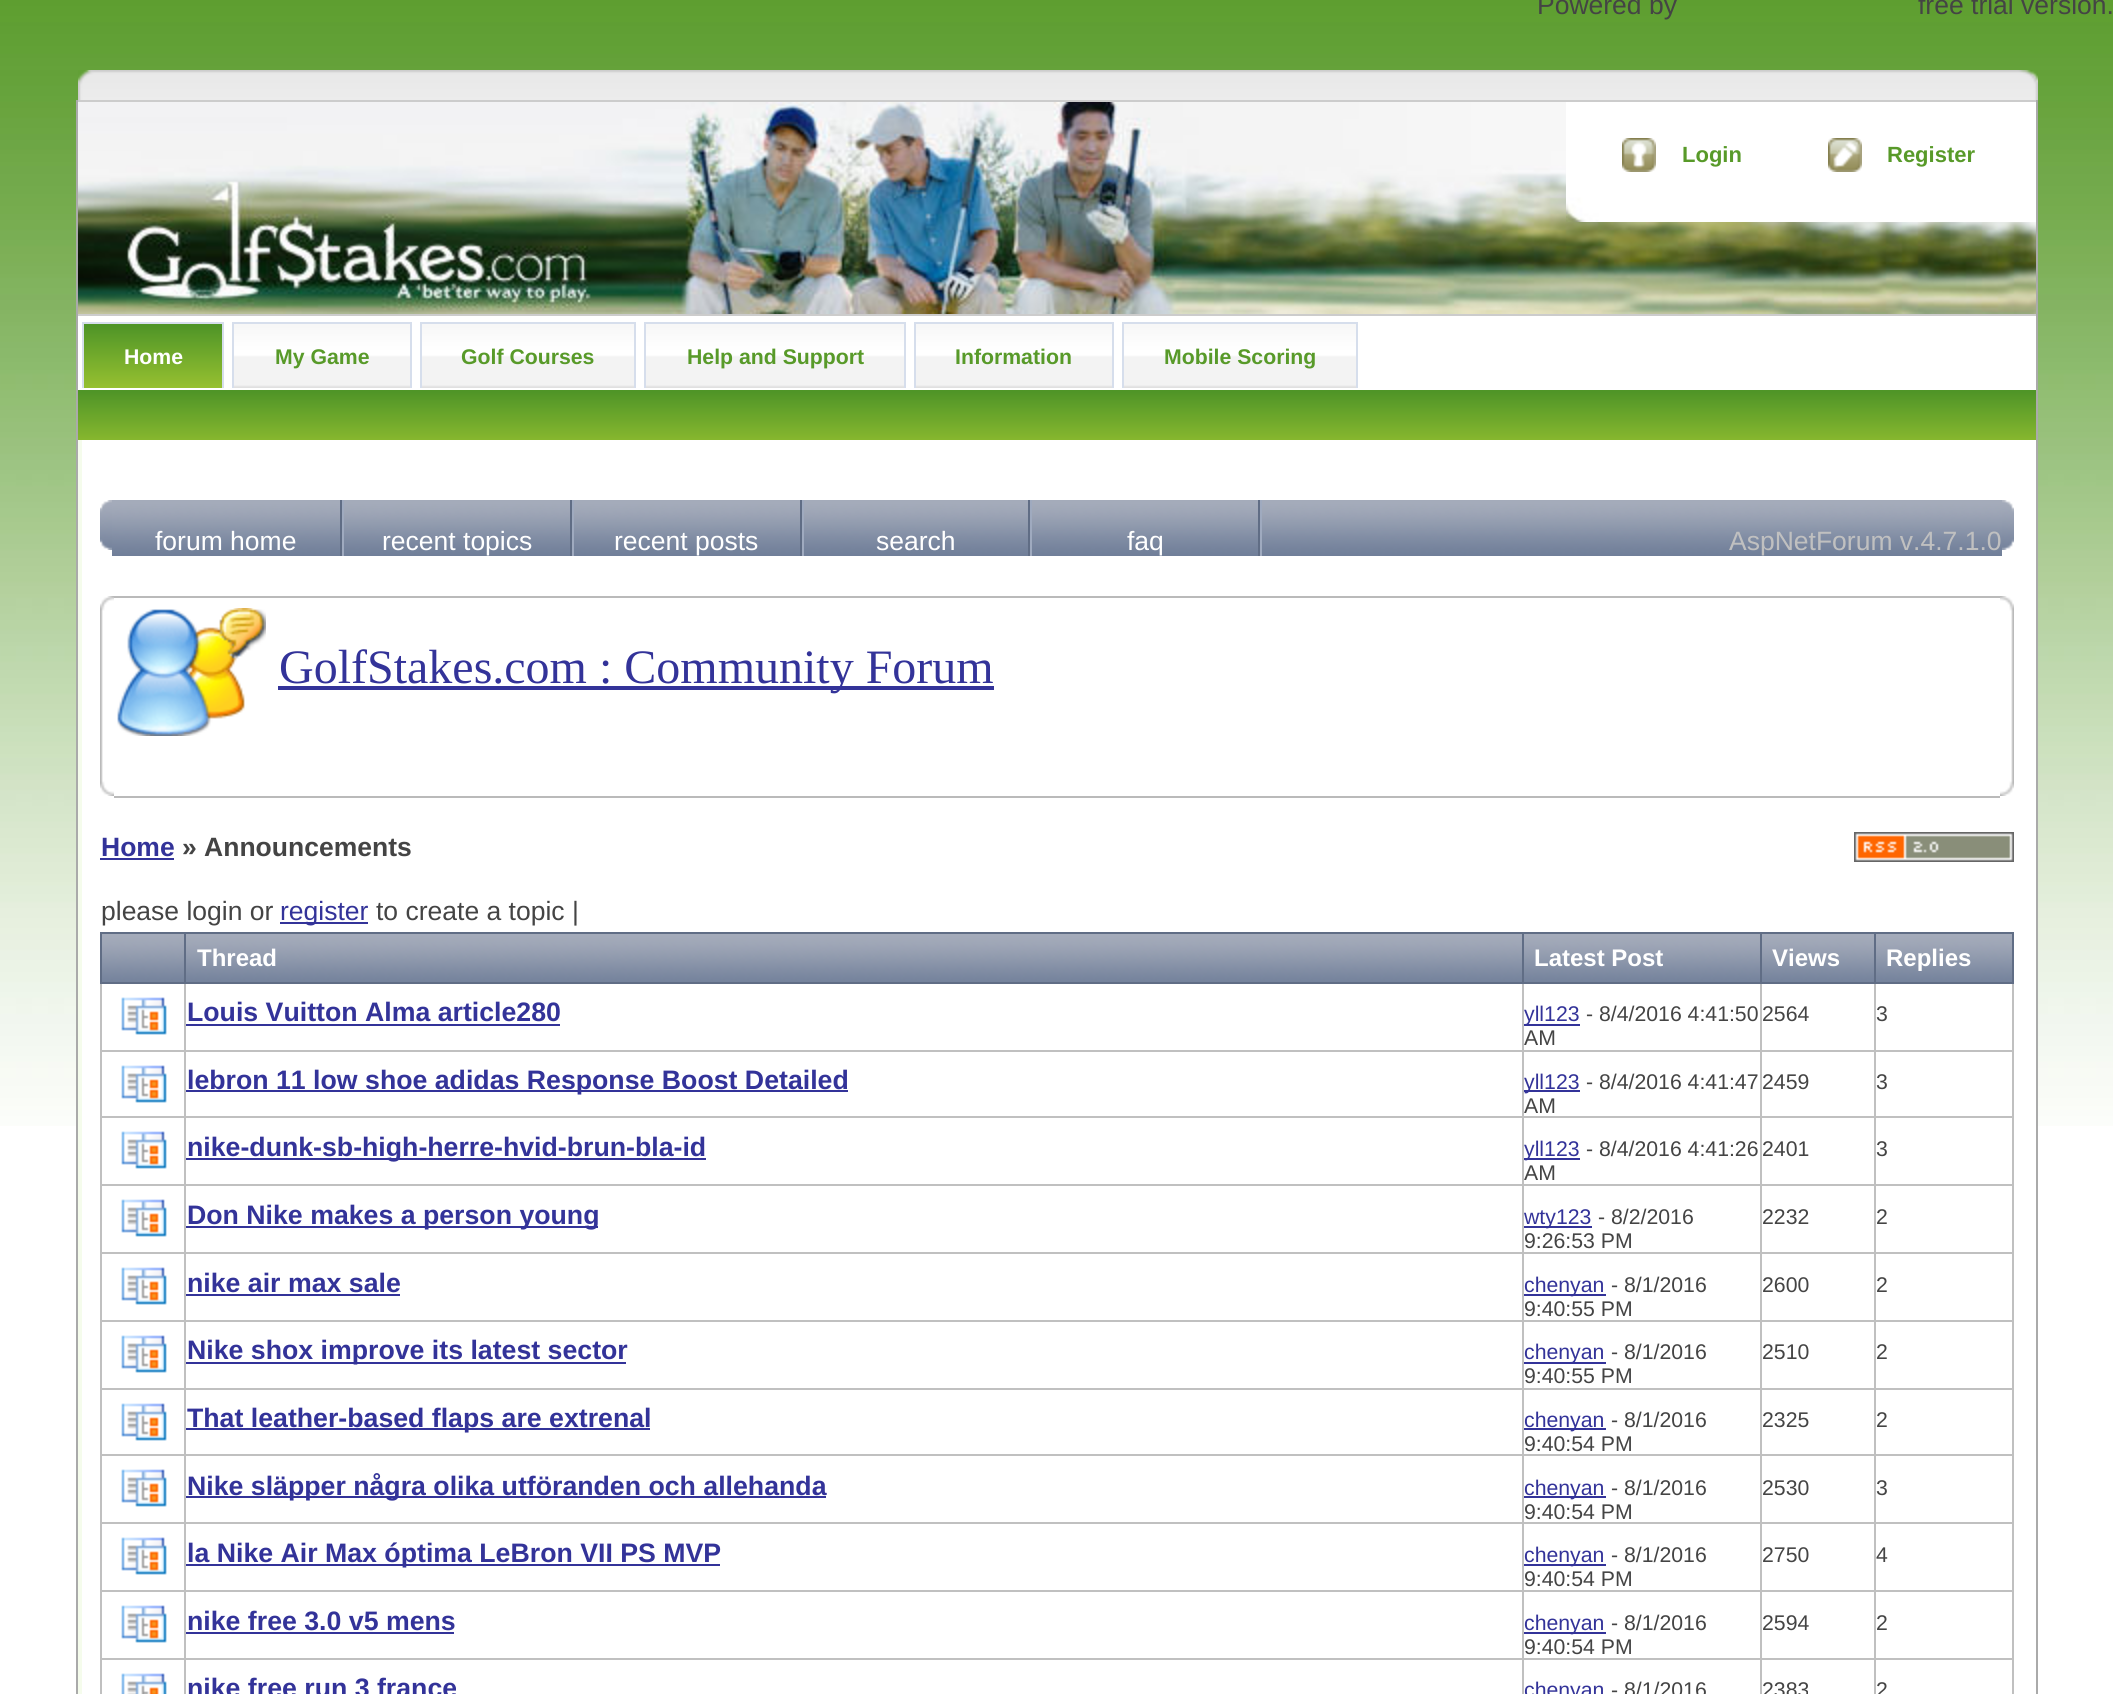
#include <cairo/cairo.h>
#include <math.h>
#include <stddef.h>

typedef struct { double x, y; const char *s; } line_t;
typedef struct { double x, y, w, h; unsigned color; } box_t;
static cairo_t *cr;

static void rgb(unsigned color)
{
	cairo_set_source_rgb(cr, (color >> 16) / 255.0, (color >> 8 & 255) / 255.0, (color & 255) / 255.0);
}

static void image(const char *path, double x, double y, double w, double h)
{
	cairo_surface_t *image = cairo_image_surface_create_from_png(path);
	cairo_save(cr);
	cairo_set_source_surface(cr, image, x, y);
	cairo_rectangle(cr, x, y, w, h);
	cairo_fill(cr);
	cairo_restore(cr);
	cairo_surface_destroy(image);
}

int main(void) {
	cairo_surface_t *surface = cairo_image_surface_create(CAIRO_FORMAT_RGB24, 2113, 1694);
	cr = cairo_create(surface);
	cairo_font_options_t *options = cairo_font_options_create();
	cairo_font_options_set_hint_metrics(options, CAIRO_HINT_METRICS_OFF);
	cairo_font_options_set_hint_style(options, CAIRO_HINT_STYLE_NONE);
	cairo_set_font_options(cr, options);
	cairo_set_miter_limit(cr, 4);
	rgb(0xffffff);
	cairo_paint(cr);
	image("img/1.png", 0, 0, 2113, 1126);
	image("img/2.png", 78, 70, 1960, 30);
	rgb(0xffffff);
	cairo_rectangle(cr, 82, 440, 1954, 686);
	cairo_fill(cr);
	image("img/3.png", 78, 440, 4, 1254);
	{
		static const box_t items[] = {
			{76, 100, 1962, 2, 0xcccccc},
			{2036, 100, 2, 1594, 0xaaaaaa},
			{76, 100, 2, 1594, 0xaaaaaa},
		};
		for (size_t i = 0; i < sizeof items / sizeof *items; i++) {
			rgb(items[i].color);
			cairo_rectangle(cr, items[i].x, items[i].y, items[i].w, items[i].h);
			cairo_fill(cr);
		}
	}
	image("img/4.png", 78, 102, 1958, 212);
	image("img/5.png", 1566, 102, 470, 120);
	image("img/6.png", 1622, 138, 34, 34);
	image("img/7.png", 1828, 138, 34, 34);
	rgb(0xffffff);
	cairo_rectangle(cr, 78, 316, 1958, 74);
	cairo_fill(cr);
	rgb(0xcccccc);
	cairo_rectangle(cr, 78, 314, 1958, 2);
	cairo_fill(cr);
	image("img/8.png", 84, 324, 138, 64);
	{
		static const box_t items[] = {
			{82, 322, 142, 2, 0xd6deec},
			{222, 322, 2, 66, 0xd6deec},
			{82, 322, 2, 66, 0xd6deec},
		};
		for (size_t i = 0; i < sizeof items / sizeof *items; i++) {
			rgb(items[i].color);
			cairo_rectangle(cr, items[i].x, items[i].y, items[i].w, items[i].h);
			cairo_fill(cr);
		}
	}
	image("img/9.png", 234, 324, 176, 64);
	{
		static const box_t items[] = {
			{232, 322, 180, 2, 0xd6deec},
			{410, 322, 2, 66, 0xd6deec},
			{232, 322, 2, 66, 0xd6deec},
		};
		for (size_t i = 0; i < sizeof items / sizeof *items; i++) {
			rgb(items[i].color);
			cairo_rectangle(cr, items[i].x, items[i].y, items[i].w, items[i].h);
			cairo_fill(cr);
		}
	}
	image("img/10.png", 422, 324, 212, 64);
	{
		static const box_t items[] = {
			{420, 322, 216, 2, 0xd6deec},
			{634, 322, 2, 66, 0xd6deec},
			{420, 322, 2, 66, 0xd6deec},
		};
		for (size_t i = 0; i < sizeof items / sizeof *items; i++) {
			rgb(items[i].color);
			cairo_rectangle(cr, items[i].x, items[i].y, items[i].w, items[i].h);
			cairo_fill(cr);
		}
	}
	image("img/11.png", 646, 324, 258, 64);
	{
		static const box_t items[] = {
			{644, 322, 262, 2, 0xd6deec},
			{904, 322, 2, 66, 0xd6deec},
			{644, 322, 2, 66, 0xd6deec},
		};
		for (size_t i = 0; i < sizeof items / sizeof *items; i++) {
			rgb(items[i].color);
			cairo_rectangle(cr, items[i].x, items[i].y, items[i].w, items[i].h);
			cairo_fill(cr);
		}
	}
	image("img/12.png", 916, 324, 196, 64);
	{
		static const box_t items[] = {
			{914, 322, 200, 2, 0xd6deec},
			{1112, 322, 2, 66, 0xd6deec},
			{914, 322, 2, 66, 0xd6deec},
		};
		for (size_t i = 0; i < sizeof items / sizeof *items; i++) {
			rgb(items[i].color);
			cairo_rectangle(cr, items[i].x, items[i].y, items[i].w, items[i].h);
			cairo_fill(cr);
		}
	}
	image("img/13.png", 1124, 324, 232, 64);
	{
		static const box_t items[] = {
			{1122, 322, 236, 2, 0xd6deec},
			{1356, 322, 2, 66, 0xd6deec},
			{1122, 322, 2, 66, 0xd6deec},
		};
		for (size_t i = 0; i < sizeof items / sizeof *items; i++) {
			rgb(items[i].color);
			cairo_rectangle(cr, items[i].x, items[i].y, items[i].w, items[i].h);
			cairo_fill(cr);
		}
	}
	image("img/14.png", 78, 390, 1958, 50);
	image("img/15.png", 100, 500, 12, 50);
	image("img/16.png", 112, 500, 228, 56);
	rgb(0x606d85);
	cairo_rectangle(cr, 340, 500, 2, 56);
	cairo_fill(cr);
	image("img/17.png", 344, 500, 226, 56);
	cairo_rectangle(cr, 570, 500, 2, 56);
	cairo_fill(cr);
	rgb(0x9faabf);
	cairo_rectangle(cr, 342, 500, 2, 56);
	cairo_fill(cr);
	image("img/17.png", 574, 500, 226, 56);
	rgb(0x606d85);
	cairo_rectangle(cr, 800, 500, 2, 56);
	cairo_fill(cr);
	rgb(0x9faabf);
	cairo_rectangle(cr, 572, 500, 2, 56);
	cairo_fill(cr);
	image("img/18.png", 804, 500, 224, 56);
	rgb(0x606d85);
	cairo_rectangle(cr, 1028, 500, 2, 56);
	cairo_fill(cr);
	rgb(0x9faabf);
	cairo_rectangle(cr, 802, 500, 2, 56);
	cairo_fill(cr);
	image("img/17.png", 1032, 500, 226, 56);
	rgb(0x606d85);
	cairo_rectangle(cr, 1258, 500, 2, 56);
	cairo_fill(cr);
	rgb(0x9faabf);
	cairo_rectangle(cr, 1030, 500, 2, 56);
	cairo_fill(cr);
	image("img/19.png", 1262, 500, 740, 56);
	cairo_rectangle(cr, 1260, 500, 2, 56);
	cairo_fill(cr);
	image("img/20.png", 2002, 500, 12, 50);
	image("img/21.png", 100, 596, 14, 200);
	rgb(0xbababa);
	cairo_rectangle(cr, 114, 596, 1886, 2);
	cairo_fill(cr);
	cairo_rectangle(cr, 114, 796, 1886, 2);
	cairo_fill(cr);
	image("img/22.png", 117, 608, 149, 128);
	rgb(0x333399);
	cairo_rectangle(cr, 278, 686, 716, 4);
	cairo_fill(cr);
	image("img/23.png", 2000, 596, 14, 200);
	cairo_rectangle(cr, 100, 858, 74, 2);
	cairo_fill(cr);
	image("img/24.png", 1854, 832, 160, 30);
	cairo_rectangle(cr, 280, 922, 88, 2);
	cairo_fill(cr);
	image("img/25.png", 102, 934, 82, 48);
	{
		static const box_t items[] = {
			{1874, 932, 140, 2, 0x606d85},
			{1874, 1050, 140, 2, 0xc0c0c0},
			{1874, 1116, 140, 2, 0xc0c0c0},
			{1874, 1184, 140, 2, 0xc0c0c0},
			{1874, 1252, 140, 2, 0xc0c0c0},
			{1874, 1320, 140, 2, 0xc0c0c0},
			{1874, 1388, 140, 2, 0xc0c0c0},
			{1874, 1454, 140, 2, 0xc0c0c0},
			{1874, 1522, 140, 2, 0xc0c0c0},
			{1874, 1590, 140, 2, 0xc0c0c0},
			{1874, 1658, 140, 2, 0xc0c0c0},
			{2012, 1658, 2, 36, 0xc0c0c0},
			{2012, 1590, 2, 70, 0xc0c0c0},
			{2012, 1522, 2, 70, 0xc0c0c0},
			{2012, 1454, 2, 70, 0xc0c0c0},
			{2012, 1388, 2, 68, 0xc0c0c0},
			{2012, 1320, 2, 70, 0xc0c0c0},
			{2012, 1252, 2, 70, 0xc0c0c0},
			{2012, 1184, 2, 70, 0xc0c0c0},
			{2012, 1116, 2, 70, 0xc0c0c0},
			{2012, 982, 2, 136, 0xc0c0c0},
			{2012, 932, 2, 52, 0x606d85},
			{1874, 1658, 2, 36, 0xc0c0c0},
			{1760, 1658, 116, 2, 0xc0c0c0},
			{1874, 1590, 2, 70, 0xc0c0c0},
			{1760, 1590, 116, 2, 0xc0c0c0},
			{1874, 1522, 2, 70, 0xc0c0c0},
			{1760, 1522, 116, 2, 0xc0c0c0},
			{1874, 1454, 2, 70, 0xc0c0c0},
			{1760, 1454, 116, 2, 0xc0c0c0},
			{1874, 1388, 2, 68, 0xc0c0c0},
			{1760, 1388, 116, 2, 0xc0c0c0},
			{1874, 1320, 2, 70, 0xc0c0c0},
			{1760, 1320, 116, 2, 0xc0c0c0},
			{1874, 1252, 2, 70, 0xc0c0c0},
			{1760, 1252, 116, 2, 0xc0c0c0},
			{1874, 1184, 2, 70, 0xc0c0c0},
			{1760, 1184, 116, 2, 0xc0c0c0},
			{1874, 1116, 2, 70, 0xc0c0c0},
			{1760, 1116, 116, 2, 0xc0c0c0},
			{1874, 1050, 2, 68, 0xc0c0c0},
			{1760, 1050, 116, 2, 0xc0c0c0},
			{1874, 982, 2, 70, 0xc0c0c0},
			{1874, 982, 140, 2, 0x606d85},
			{1874, 932, 2, 52, 0x606d85},
			{1760, 932, 116, 2, 0x606d85},
			{1760, 1658, 2, 36, 0xc0c0c0},
			{1522, 1658, 240, 2, 0xc0c0c0},
			{1760, 1590, 2, 70, 0xc0c0c0},
			{1522, 1590, 240, 2, 0xc0c0c0},
			{1760, 1522, 2, 70, 0xc0c0c0},
			{1522, 1522, 240, 2, 0xc0c0c0},
			{1760, 1454, 2, 70, 0xc0c0c0},
			{1522, 1454, 240, 2, 0xc0c0c0},
			{1760, 1388, 2, 68, 0xc0c0c0},
			{1522, 1388, 240, 2, 0xc0c0c0},
			{1760, 1320, 2, 70, 0xc0c0c0},
			{1522, 1320, 240, 2, 0xc0c0c0},
			{1760, 1252, 2, 70, 0xc0c0c0},
			{1522, 1252, 240, 2, 0xc0c0c0},
			{1760, 1184, 2, 70, 0xc0c0c0},
			{1522, 1184, 240, 2, 0xc0c0c0},
			{1760, 1116, 2, 70, 0xc0c0c0},
			{1522, 1116, 240, 2, 0xc0c0c0},
			{1760, 1050, 2, 68, 0xc0c0c0},
			{1522, 1050, 240, 2, 0xc0c0c0},
			{1760, 982, 2, 70, 0xc0c0c0},
			{1760, 982, 116, 2, 0x606d85},
			{1760, 932, 2, 52, 0x606d85},
			{1522, 932, 240, 2, 0x606d85},
			{1522, 1658, 2, 36, 0xc0c0c0},
			{184, 1658, 1340, 2, 0xc0c0c0},
			{1522, 1590, 2, 70, 0xc0c0c0},
			{184, 1590, 1340, 2, 0xc0c0c0},
			{1522, 1522, 2, 70, 0xc0c0c0},
			{184, 1522, 1340, 2, 0xc0c0c0},
			{1522, 1454, 2, 70, 0xc0c0c0},
			{184, 1454, 1340, 2, 0xc0c0c0},
			{1522, 1388, 2, 68, 0xc0c0c0},
			{184, 1388, 1340, 2, 0xc0c0c0},
			{1522, 1320, 2, 70, 0xc0c0c0},
			{184, 1320, 1340, 2, 0xc0c0c0},
			{1522, 1252, 2, 70, 0xc0c0c0},
			{184, 1252, 1340, 2, 0xc0c0c0},
			{1522, 1184, 2, 70, 0xc0c0c0},
			{184, 1184, 1340, 2, 0xc0c0c0},
			{1522, 1116, 2, 70, 0xc0c0c0},
			{184, 1116, 1340, 2, 0xc0c0c0},
			{1522, 1050, 2, 68, 0xc0c0c0},
			{184, 1050, 1340, 2, 0xc0c0c0},
			{1522, 982, 2, 70, 0xc0c0c0},
			{1522, 982, 240, 2, 0x606d85},
			{1522, 932, 2, 52, 0x606d85},
			{184, 932, 1340, 2, 0x606d85},
			{184, 1658, 2, 36, 0xc0c0c0},
			{100, 1658, 86, 2, 0xc0c0c0},
			{184, 1590, 2, 70, 0xc0c0c0},
			{100, 1590, 86, 2, 0xc0c0c0},
			{184, 1522, 2, 70, 0xc0c0c0},
			{100, 1522, 86, 2, 0xc0c0c0},
			{184, 1454, 2, 70, 0xc0c0c0},
			{100, 1454, 86, 2, 0xc0c0c0},
			{184, 1388, 2, 68, 0xc0c0c0},
			{100, 1388, 86, 2, 0xc0c0c0},
			{184, 1320, 2, 70, 0xc0c0c0},
			{100, 1320, 86, 2, 0xc0c0c0},
			{184, 1252, 2, 70, 0xc0c0c0},
			{100, 1252, 86, 2, 0xc0c0c0},
			{184, 1184, 2, 70, 0xc0c0c0},
			{100, 1184, 86, 2, 0xc0c0c0},
			{184, 1116, 2, 70, 0xc0c0c0},
			{100, 1116, 86, 2, 0xc0c0c0},
			{184, 1050, 2, 68, 0xc0c0c0},
			{100, 1050, 86, 2, 0xc0c0c0},
			{184, 982, 2, 70, 0xc0c0c0},
			{184, 982, 1340, 2, 0x606d85},
			{184, 932, 2, 52, 0x606d85},
			{100, 932, 86, 2, 0x606d85},
			{100, 1658, 2, 36, 0xc0c0c0},
			{100, 1590, 2, 70, 0xc0c0c0},
			{100, 1522, 2, 70, 0xc0c0c0},
			{100, 1454, 2, 70, 0xc0c0c0},
			{100, 1388, 2, 68, 0xc0c0c0},
			{100, 1320, 2, 70, 0xc0c0c0},
			{100, 1252, 2, 70, 0xc0c0c0},
			{100, 1184, 2, 70, 0xc0c0c0},
			{100, 1116, 2, 70, 0xc0c0c0},
			{100, 982, 2, 136, 0xc0c0c0},
			{100, 982, 86, 2, 0x606d85},
			{100, 932, 2, 52, 0x606d85},
		};
		for (size_t i = 0; i < sizeof items / sizeof *items; i++) {
			rgb(items[i].color);
			cairo_rectangle(cr, items[i].x, items[i].y, items[i].w, items[i].h);
			cairo_fill(cr);
		}
	}
	image("img/26.png", 186, 934, 1336, 48);
	image("img/27.png", 1524, 934, 236, 48);
	image("img/28.png", 1762, 934, 112, 48);
	image("img/29.png", 1876, 934, 136, 48);
	image("img/30.png", 121, 997, 46, 38);
	rgb(0x333399);
	cairo_rectangle(cr, 186, 1024, 374, 2);
	cairo_fill(cr);
	cairo_rectangle(cr, 1524, 1024, 56, 2);
	cairo_fill(cr);
	image("img/30.png", 121, 1065, 46, 38);
	cairo_rectangle(cr, 186, 1090, 662, 2);
	cairo_fill(cr);
	cairo_rectangle(cr, 1524, 1090, 56, 2);
	cairo_fill(cr);
	image("img/30.png", 121, 1131, 46, 38);
	cairo_rectangle(cr, 186, 1158, 520, 2);
	cairo_fill(cr);
	cairo_rectangle(cr, 1524, 1158, 56, 2);
	cairo_fill(cr);
	image("img/30.png", 121, 1199, 46, 38);
	cairo_rectangle(cr, 186, 1226, 412, 2);
	cairo_fill(cr);
	cairo_rectangle(cr, 1524, 1226, 68, 2);
	cairo_fill(cr);
	image("img/30.png", 121, 1267, 46, 38);
	cairo_rectangle(cr, 186, 1294, 214, 2);
	cairo_fill(cr);
	cairo_rectangle(cr, 1524, 1294, 82, 2);
	cairo_fill(cr);
	image("img/30.png", 121, 1335, 46, 38);
	cairo_rectangle(cr, 186, 1362, 440, 2);
	cairo_fill(cr);
	cairo_rectangle(cr, 1524, 1362, 82, 2);
	cairo_fill(cr);
	image("img/30.png", 121, 1403, 46, 38);
	cairo_rectangle(cr, 186, 1428, 464, 2);
	cairo_fill(cr);
	cairo_rectangle(cr, 1524, 1428, 82, 2);
	cairo_fill(cr);
	image("img/30.png", 121, 1469, 46, 38);
	cairo_rectangle(cr, 186, 1496, 640, 2);
	cairo_fill(cr);
	cairo_rectangle(cr, 1524, 1496, 82, 2);
	cairo_fill(cr);
	image("img/30.png", 121, 1537, 46, 38);
	cairo_rectangle(cr, 186, 1564, 534, 2);
	cairo_fill(cr);
	cairo_rectangle(cr, 1524, 1564, 82, 2);
	cairo_fill(cr);
	image("img/30.png", 121, 1605, 46, 38);
	cairo_rectangle(cr, 186, 1632, 268, 2);
	cairo_fill(cr);
	cairo_rectangle(cr, 1524, 1632, 82, 2);
	cairo_fill(cr);
	image("img/31.png", 121, 1673, 46, 21);
	cairo_select_font_face(cr, "Liberation Sans", CAIRO_FONT_SLANT_NORMAL, CAIRO_FONT_WEIGHT_NORMAL);
	cairo_set_font_size(cr, 26.5);
	rgb(0x444444);
	cairo_move_to(cr, 1537, 14);
	cairo_show_text(cr, "Powered by");
	cairo_move_to(cr, 1918, 14);
	cairo_show_text(cr, "free trial version.");
	cairo_select_font_face(cr, "Liberation Sans", CAIRO_FONT_SLANT_NORMAL, CAIRO_FONT_WEIGHT_BOLD);
	cairo_set_font_size(cr, 22);
	rgb(0x589a29);
	cairo_move_to(cr, 1682, 162);
	cairo_show_text(cr, "Login");
	cairo_move_to(cr, 1887, 162);
	cairo_show_text(cr, "Register");
	cairo_set_font_size(cr, 21.25);
	rgb(0xffffff);
	cairo_move_to(cr, 124, 364);
	cairo_show_text(cr, "Home");
	rgb(0x589a29);
	{
		static const line_t items[] = {
			{275, 364, "My Game"},
			{461, 364, "Golf Courses"},
			{687, 364, "Help and Support"},
			{955, 364, "Information"},
			{1164, 364, "Mobile Scoring"},
		};
		for (size_t i = 0; i < sizeof items / sizeof *items; i++) {
			cairo_move_to(cr, items[i].x, items[i].y);
			cairo_show_text(cr, items[i].s);
		}
	}
	cairo_select_font_face(cr, "Liberation Sans", CAIRO_FONT_SLANT_NORMAL, CAIRO_FONT_WEIGHT_NORMAL);
	cairo_set_font_size(cr, 26.5);
	rgb(0xffffff);
	{
		static const line_t items[] = {
			{155, 550, "forum home"},
			{382, 550, "recent topics"},
			{614, 550, "recent posts"},
			{876, 550, "search"},
			{1127, 550, "faq"},
		};
		for (size_t i = 0; i < sizeof items / sizeof *items; i++) {
			cairo_move_to(cr, items[i].x, items[i].y);
			cairo_show_text(cr, items[i].s);
		}
	}
	rgb(0xc0c0c0);
	cairo_move_to(cr, 1729, 550);
	cairo_show_text(cr, "AspNetForum v.4.7.1.0");
	cairo_select_font_face(cr, "Liberation Serif", CAIRO_FONT_SLANT_NORMAL, CAIRO_FONT_WEIGHT_NORMAL);
	cairo_set_font_size(cr, 48);
	rgb(0x333399);
	cairo_move_to(cr, 279, 683);
	cairo_show_text(cr, "GolfStakes.com : Community Forum");
	cairo_select_font_face(cr, "Liberation Sans", CAIRO_FONT_SLANT_NORMAL, CAIRO_FONT_WEIGHT_BOLD);
	cairo_set_font_size(cr, 26.5);
	cairo_move_to(cr, 101, 856);
	cairo_show_text(cr, "Home");
	rgb(0x444444);
	cairo_move_to(cr, 182, 856);
	cairo_show_text(cr, "» Announcements");
	cairo_select_font_face(cr, "Liberation Sans", CAIRO_FONT_SLANT_NORMAL, CAIRO_FONT_WEIGHT_NORMAL);
	cairo_move_to(cr, 101, 920);
	cairo_show_text(cr, "please login or");
	rgb(0x333399);
	cairo_move_to(cr, 280, 920);
	cairo_show_text(cr, "register");
	rgb(0x444444);
	cairo_move_to(cr, 376, 920);
	cairo_show_text(cr, "to create a topic |");
	cairo_select_font_face(cr, "Liberation Sans", CAIRO_FONT_SLANT_NORMAL, CAIRO_FONT_WEIGHT_BOLD);
	cairo_set_font_size(cr, 24);
	rgb(0xffffff);
	{
		static const line_t items[] = {
			{197, 966, "Thread"},
			{1534, 966, "Latest Post"},
			{1772, 966, "Views"},
			{1886, 966, "Replies"},
		};
		for (size_t i = 0; i < sizeof items / sizeof *items; i++) {
			cairo_move_to(cr, items[i].x, items[i].y);
			cairo_show_text(cr, items[i].s);
		}
	}
	cairo_set_font_size(cr, 26.7);
	rgb(0x333399);
	cairo_move_to(cr, 187, 1021);
	cairo_show_text(cr, "Louis Vuitton Alma article280");
	cairo_select_font_face(cr, "Liberation Sans", CAIRO_FONT_SLANT_NORMAL, CAIRO_FONT_WEIGHT_NORMAL);
	cairo_set_font_size(cr, 21.25);
	cairo_move_to(cr, 1524, 1021);
	cairo_show_text(cr, "yll123");
	rgb(0x444444);
	{
		static const line_t items[] = {
			{1586, 1021, "- 8/4/2016 4:41:50"},
			{1524, 1045, "AM"},
			{1762, 1021, "2564"},
			{1876, 1021, "3"},
		};
		for (size_t i = 0; i < sizeof items / sizeof *items; i++) {
			cairo_move_to(cr, items[i].x, items[i].y);
			cairo_show_text(cr, items[i].s);
		}
	}
	cairo_select_font_face(cr, "Liberation Sans", CAIRO_FONT_SLANT_NORMAL, CAIRO_FONT_WEIGHT_BOLD);
	cairo_set_font_size(cr, 26.7);
	rgb(0x333399);
	cairo_move_to(cr, 187, 1089);
	cairo_show_text(cr, "lebron 11 low shoe adidas Response Boost Detailed");
	cairo_select_font_face(cr, "Liberation Sans", CAIRO_FONT_SLANT_NORMAL, CAIRO_FONT_WEIGHT_NORMAL);
	cairo_set_font_size(cr, 21.25);
	cairo_move_to(cr, 1524, 1089);
	cairo_show_text(cr, "yll123");
	rgb(0x444444);
	{
		static const line_t items[] = {
			{1586, 1089, "- 8/4/2016 4:41:47"},
			{1524, 1113, "AM"},
			{1762, 1089, "2459"},
			{1876, 1089, "3"},
		};
		for (size_t i = 0; i < sizeof items / sizeof *items; i++) {
			cairo_move_to(cr, items[i].x, items[i].y);
			cairo_show_text(cr, items[i].s);
		}
	}
	cairo_select_font_face(cr, "Liberation Sans", CAIRO_FONT_SLANT_NORMAL, CAIRO_FONT_WEIGHT_BOLD);
	cairo_set_font_size(cr, 26.7);
	rgb(0x333399);
	cairo_move_to(cr, 187, 1156);
	cairo_show_text(cr, "nike-dunk-sb-high-herre-hvid-brun-bla-id");
	cairo_select_font_face(cr, "Liberation Sans", CAIRO_FONT_SLANT_NORMAL, CAIRO_FONT_WEIGHT_NORMAL);
	cairo_set_font_size(cr, 21.25);
	cairo_move_to(cr, 1524, 1156);
	cairo_show_text(cr, "yll123");
	rgb(0x444444);
	{
		static const line_t items[] = {
			{1586, 1156, "- 8/4/2016 4:41:26"},
			{1524, 1180, "AM"},
			{1762, 1156, "2401"},
			{1876, 1156, "3"},
		};
		for (size_t i = 0; i < sizeof items / sizeof *items; i++) {
			cairo_move_to(cr, items[i].x, items[i].y);
			cairo_show_text(cr, items[i].s);
		}
	}
	cairo_select_font_face(cr, "Liberation Sans", CAIRO_FONT_SLANT_NORMAL, CAIRO_FONT_WEIGHT_BOLD);
	cairo_set_font_size(cr, 26.7);
	rgb(0x333399);
	cairo_move_to(cr, 187, 1224);
	cairo_show_text(cr, "Don Nike makes a person young");
	cairo_select_font_face(cr, "Liberation Sans", CAIRO_FONT_SLANT_NORMAL, CAIRO_FONT_WEIGHT_NORMAL);
	cairo_set_font_size(cr, 21.25);
	cairo_move_to(cr, 1524, 1224);
	cairo_show_text(cr, "wty123");
	rgb(0x444444);
	{
		static const line_t items[] = {
			{1598, 1224, "- 8/2/2016"},
			{1524, 1248, "9:26:53 PM"},
			{1762, 1224, "2232"},
			{1876, 1224, "2"},
		};
		for (size_t i = 0; i < sizeof items / sizeof *items; i++) {
			cairo_move_to(cr, items[i].x, items[i].y);
			cairo_show_text(cr, items[i].s);
		}
	}
	cairo_select_font_face(cr, "Liberation Sans", CAIRO_FONT_SLANT_NORMAL, CAIRO_FONT_WEIGHT_BOLD);
	cairo_set_font_size(cr, 26.7);
	rgb(0x333399);
	cairo_move_to(cr, 187, 1292);
	cairo_show_text(cr, "nike air max sale");
	cairo_select_font_face(cr, "Liberation Sans", CAIRO_FONT_SLANT_NORMAL, CAIRO_FONT_WEIGHT_NORMAL);
	cairo_set_font_size(cr, 21.25);
	cairo_move_to(cr, 1524, 1292);
	cairo_show_text(cr, "chenyan");
	rgb(0x444444);
	{
		static const line_t items[] = {
			{1611, 1292, "- 8/1/2016"},
			{1524, 1316, "9:40:55 PM"},
			{1762, 1292, "2600"},
			{1876, 1292, "2"},
		};
		for (size_t i = 0; i < sizeof items / sizeof *items; i++) {
			cairo_move_to(cr, items[i].x, items[i].y);
			cairo_show_text(cr, items[i].s);
		}
	}
	cairo_select_font_face(cr, "Liberation Sans", CAIRO_FONT_SLANT_NORMAL, CAIRO_FONT_WEIGHT_BOLD);
	cairo_set_font_size(cr, 26.7);
	rgb(0x333399);
	cairo_move_to(cr, 187, 1359);
	cairo_show_text(cr, "Nike shox improve its latest sector");
	cairo_select_font_face(cr, "Liberation Sans", CAIRO_FONT_SLANT_NORMAL, CAIRO_FONT_WEIGHT_NORMAL);
	cairo_set_font_size(cr, 21.25);
	cairo_move_to(cr, 1524, 1359);
	cairo_show_text(cr, "chenyan");
	rgb(0x444444);
	{
		static const line_t items[] = {
			{1611, 1359, "- 8/1/2016"},
			{1524, 1383, "9:40:55 PM"},
			{1762, 1359, "2510"},
			{1876, 1359, "2"},
		};
		for (size_t i = 0; i < sizeof items / sizeof *items; i++) {
			cairo_move_to(cr, items[i].x, items[i].y);
			cairo_show_text(cr, items[i].s);
		}
	}
	cairo_select_font_face(cr, "Liberation Sans", CAIRO_FONT_SLANT_NORMAL, CAIRO_FONT_WEIGHT_BOLD);
	cairo_set_font_size(cr, 26.7);
	rgb(0x333399);
	cairo_move_to(cr, 187, 1427);
	cairo_show_text(cr, "That leather-based flaps are extrenal");
	cairo_select_font_face(cr, "Liberation Sans", CAIRO_FONT_SLANT_NORMAL, CAIRO_FONT_WEIGHT_NORMAL);
	cairo_set_font_size(cr, 21.25);
	cairo_move_to(cr, 1524, 1427);
	cairo_show_text(cr, "chenyan");
	rgb(0x444444);
	{
		static const line_t items[] = {
			{1611, 1427, "- 8/1/2016"},
			{1524, 1451, "9:40:54 PM"},
			{1762, 1427, "2325"},
			{1876, 1427, "2"},
		};
		for (size_t i = 0; i < sizeof items / sizeof *items; i++) {
			cairo_move_to(cr, items[i].x, items[i].y);
			cairo_show_text(cr, items[i].s);
		}
	}
	cairo_select_font_face(cr, "Liberation Sans", CAIRO_FONT_SLANT_NORMAL, CAIRO_FONT_WEIGHT_BOLD);
	cairo_set_font_size(cr, 26.7);
	rgb(0x333399);
	cairo_move_to(cr, 187, 1495);
	cairo_show_text(cr, "Nike släpper några olika utföranden och allehanda");
	cairo_select_font_face(cr, "Liberation Sans", CAIRO_FONT_SLANT_NORMAL, CAIRO_FONT_WEIGHT_NORMAL);
	cairo_set_font_size(cr, 21.25);
	cairo_move_to(cr, 1524, 1495);
	cairo_show_text(cr, "chenyan");
	rgb(0x444444);
	{
		static const line_t items[] = {
			{1611, 1495, "- 8/1/2016"},
			{1524, 1519, "9:40:54 PM"},
			{1762, 1495, "2530"},
			{1876, 1495, "3"},
		};
		for (size_t i = 0; i < sizeof items / sizeof *items; i++) {
			cairo_move_to(cr, items[i].x, items[i].y);
			cairo_show_text(cr, items[i].s);
		}
	}
	cairo_select_font_face(cr, "Liberation Sans", CAIRO_FONT_SLANT_NORMAL, CAIRO_FONT_WEIGHT_BOLD);
	cairo_set_font_size(cr, 26.7);
	rgb(0x333399);
	cairo_move_to(cr, 187, 1562);
	cairo_show_text(cr, "la Nike Air Max óptima LeBron VII PS MVP");
	cairo_select_font_face(cr, "Liberation Sans", CAIRO_FONT_SLANT_NORMAL, CAIRO_FONT_WEIGHT_NORMAL);
	cairo_set_font_size(cr, 21.25);
	cairo_move_to(cr, 1524, 1562);
	cairo_show_text(cr, "chenyan");
	rgb(0x444444);
	{
		static const line_t items[] = {
			{1611, 1562, "- 8/1/2016"},
			{1524, 1586, "9:40:54 PM"},
			{1762, 1562, "2750"},
			{1876, 1562, "4"},
		};
		for (size_t i = 0; i < sizeof items / sizeof *items; i++) {
			cairo_move_to(cr, items[i].x, items[i].y);
			cairo_show_text(cr, items[i].s);
		}
	}
	cairo_select_font_face(cr, "Liberation Sans", CAIRO_FONT_SLANT_NORMAL, CAIRO_FONT_WEIGHT_BOLD);
	cairo_set_font_size(cr, 26.7);
	rgb(0x333399);
	cairo_move_to(cr, 187, 1630);
	cairo_show_text(cr, "nike free 3.0 v5 mens");
	cairo_select_font_face(cr, "Liberation Sans", CAIRO_FONT_SLANT_NORMAL, CAIRO_FONT_WEIGHT_NORMAL);
	cairo_set_font_size(cr, 21.25);
	cairo_move_to(cr, 1524, 1630);
	cairo_show_text(cr, "chenyan");
	rgb(0x444444);
	{
		static const line_t items[] = {
			{1611, 1630, "- 8/1/2016"},
			{1524, 1654, "9:40:54 PM"},
			{1762, 1630, "2594"},
			{1876, 1630, "2"},
		};
		for (size_t i = 0; i < sizeof items / sizeof *items; i++) {
			cairo_move_to(cr, items[i].x, items[i].y);
			cairo_show_text(cr, items[i].s);
		}
	}
	cairo_select_font_face(cr, "Liberation Sans", CAIRO_FONT_SLANT_NORMAL, CAIRO_FONT_WEIGHT_BOLD);
	cairo_set_font_size(cr, 26.7);
	rgb(0x333399);
	cairo_move_to(cr, 187, 1697);
	cairo_show_text(cr, "nike free run 3 france");
	cairo_select_font_face(cr, "Liberation Sans", CAIRO_FONT_SLANT_NORMAL, CAIRO_FONT_WEIGHT_NORMAL);
	cairo_set_font_size(cr, 21.25);
	cairo_move_to(cr, 1524, 1697);
	cairo_show_text(cr, "chenyan");
	rgb(0x444444);
	{
		static const line_t items[] = {
			{1611, 1697, "- 8/1/2016"},
			{1762, 1697, "2383"},
			{1876, 1697, "2"},
		};
		for (size_t i = 0; i < sizeof items / sizeof *items; i++) {
			cairo_move_to(cr, items[i].x, items[i].y);
			cairo_show_text(cr, items[i].s);
		}
	}
	cairo_surface_write_to_png(surface, "page.png");
	cairo_font_options_destroy(options);
	cairo_destroy(cr);
	cairo_surface_destroy(surface);
	return 0;
}
